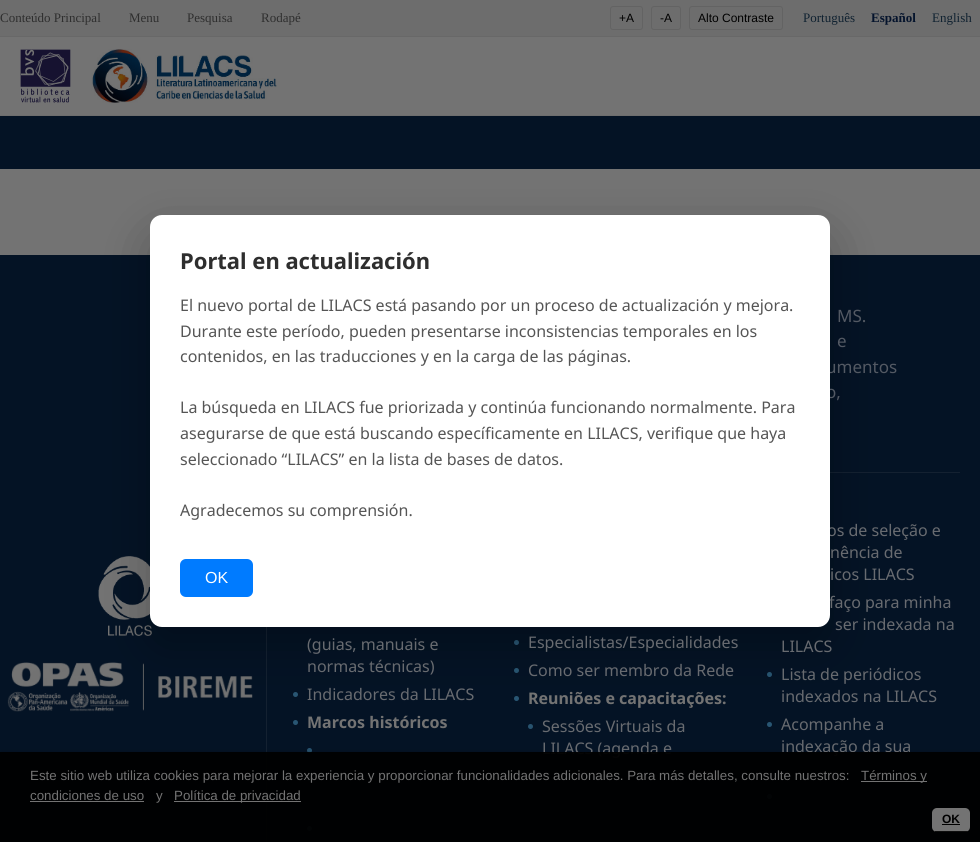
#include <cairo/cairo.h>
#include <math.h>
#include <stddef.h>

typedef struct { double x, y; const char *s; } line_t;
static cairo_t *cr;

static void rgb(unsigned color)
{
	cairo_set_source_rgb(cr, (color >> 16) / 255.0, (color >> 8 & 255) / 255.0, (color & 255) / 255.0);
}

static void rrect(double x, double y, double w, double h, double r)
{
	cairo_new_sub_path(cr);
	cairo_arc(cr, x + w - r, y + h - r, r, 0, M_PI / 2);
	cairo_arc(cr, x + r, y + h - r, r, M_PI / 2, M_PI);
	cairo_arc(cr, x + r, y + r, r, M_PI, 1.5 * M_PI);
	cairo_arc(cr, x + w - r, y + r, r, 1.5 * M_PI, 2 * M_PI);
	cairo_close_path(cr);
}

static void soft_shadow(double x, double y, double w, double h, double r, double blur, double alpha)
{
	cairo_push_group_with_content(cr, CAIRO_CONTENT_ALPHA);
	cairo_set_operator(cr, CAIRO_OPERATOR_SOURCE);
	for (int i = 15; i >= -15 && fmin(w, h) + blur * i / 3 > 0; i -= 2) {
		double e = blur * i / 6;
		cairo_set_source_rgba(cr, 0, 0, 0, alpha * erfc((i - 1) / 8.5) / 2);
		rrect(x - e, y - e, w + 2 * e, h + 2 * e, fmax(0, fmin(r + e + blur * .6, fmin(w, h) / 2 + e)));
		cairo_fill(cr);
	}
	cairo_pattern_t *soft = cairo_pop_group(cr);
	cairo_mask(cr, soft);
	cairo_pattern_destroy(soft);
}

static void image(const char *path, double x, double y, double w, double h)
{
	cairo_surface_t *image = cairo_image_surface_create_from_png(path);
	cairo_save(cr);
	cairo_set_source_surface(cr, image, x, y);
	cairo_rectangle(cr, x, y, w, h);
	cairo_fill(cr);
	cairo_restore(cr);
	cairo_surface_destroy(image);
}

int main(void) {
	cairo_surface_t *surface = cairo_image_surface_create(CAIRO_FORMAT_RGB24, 980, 842);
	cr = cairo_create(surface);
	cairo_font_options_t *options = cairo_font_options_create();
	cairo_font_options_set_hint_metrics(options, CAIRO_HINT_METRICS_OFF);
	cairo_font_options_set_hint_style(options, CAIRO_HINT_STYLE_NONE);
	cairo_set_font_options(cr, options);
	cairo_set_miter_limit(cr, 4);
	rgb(0x737373);
	cairo_paint(cr);
	rgb(0x6d6d6d);
	cairo_rectangle(cr, 0, 0, 980, 36);
	cairo_fill(cr);
	rgb(0x686868);
	cairo_rectangle(cr, 0, 36, 980, 1);
	cairo_fill(cr);
	rrect(610.5, 6.5, 32, 23, 2.5);
	rgb(0x636363);
	cairo_set_line_width(cr, 1);
	cairo_stroke(cr);
	rrect(651.5, 6.5, 29, 23, 2.5);
	cairo_stroke(cr);
	rrect(689.5, 6.5, 93, 23, 2.5);
	cairo_stroke(cr);
	rgb(0x6e6e6e);
	cairo_rectangle(cr, 0, 115, 980, 1);
	cairo_fill(cr);
	image("img/1.png", 20, 49, 51, 54);
	image("img/2.png", 91, 49, 186, 54);
	rgb(0x041325);
	cairo_rectangle(cr, 0, 116, 980, 53);
	cairo_fill(cr);
	cairo_rectangle(cr, 0, 255, 980, 587);
	cairo_fill(cr);
	image("img/3.png", 98, 556, 54, 80);
	image("img/4.png", 7, 662, 246, 50);
	rgb(0x142131);
	cairo_rectangle(cr, 266, 627, 1, 215);
	cairo_fill(cr);
	cairo_rectangle(cr, 830, 472, 130, 1);
	cairo_fill(cr);
	rgb(0x295673);
	cairo_arc(cr, 295.5, 694.5, 2.5, 0, 2 * M_PI);
	cairo_fill(cr);
	cairo_arc(cr, 295.5, 722.5, 2.5, 0, 2 * M_PI);
	cairo_fill(cr);
	cairo_arc(cr, 516.5, 642.5, 2.5, 0, 2 * M_PI);
	cairo_fill(cr);
	cairo_arc(cr, 516.5, 670.5, 2.5, 0, 2 * M_PI);
	cairo_fill(cr);
	cairo_arc(cr, 516.5, 698.5, 2.5, 0, 2 * M_PI);
	cairo_fill(cr);
	cairo_arc(cr, 769.5, 674.5, 2.5, 0, 2 * M_PI);
	cairo_fill(cr);
	cairo_arc(cr, 769.5, 724.5, 2.5, 0, 2 * M_PI);
	cairo_fill(cr);
	rgb(0x000000);
	soft_shadow(150, 235, 680, 412, 12, 25, 0.25);
	rgb(0x28536f);
	cairo_arc(cr, 309.5, 750.5, 2.5, 0, 2 * M_PI);
	cairo_fill(cr);
	cairo_arc(cr, 309.5, 778.5, 2.5, 0, 2 * M_PI);
	cairo_fill(cr);
	cairo_arc(cr, 309.5, 828.5, 2.5, 0, 2 * M_PI);
	cairo_fill(cr);
	cairo_arc(cr, 530.5, 726.5, 2.5, 0, 2 * M_PI);
	cairo_fill(cr);
	rgb(0x295673);
	cairo_arc(cr, 769.5, 796.5, 2.5, 0, 2 * M_PI);
	cairo_fill(cr);
	cairo_save(cr);
	cairo_rectangle(cr, 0, 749, 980, 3);
	cairo_clip(cr);
	rgb(0x000000);
	soft_shadow(2, 754, 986, 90, 0, 2.5, 0.6);
	cairo_restore(cr);
	cairo_select_font_face(cr, "Liberation Serif", CAIRO_FONT_SLANT_NORMAL, CAIRO_FONT_WEIGHT_NORMAL);
	cairo_set_font_size(cr, 13);
	rgb(0x2e2e2e);
	{
		static const line_t items[] = {
			{0, 22, "Conteúdo Principal"},
			{129, 22, "Menu"},
			{187, 22, "Pesquisa"},
			{261, 22, "Rodapé"},
		};
		for (size_t i = 0; i < sizeof items / sizeof *items; i++) {
			cairo_move_to(cr, items[i].x, items[i].y);
			cairo_show_text(cr, items[i].s);
		}
	}
	cairo_select_font_face(cr, "Liberation Sans", CAIRO_FONT_SLANT_NORMAL, CAIRO_FONT_WEIGHT_NORMAL);
	cairo_set_font_size(cr, 12);
	rgb(0x000000);
	{
		static const line_t items[] = {
			{619, 22, "+A"},
			{660, 22, "-A"},
			{698, 22, "Alto Contraste"},
		};
		for (size_t i = 0; i < sizeof items / sizeof *items; i++) {
			cairo_move_to(cr, items[i].x, items[i].y);
			cairo_show_text(cr, items[i].s);
		}
	}
	cairo_select_font_face(cr, "Liberation Serif", CAIRO_FONT_SLANT_NORMAL, CAIRO_FONT_WEIGHT_NORMAL);
	cairo_set_font_size(cr, 13);
	rgb(0x0f2130);
	cairo_move_to(cr, 803, 22);
	cairo_show_text(cr, "Português");
	cairo_select_font_face(cr, "Liberation Serif", CAIRO_FONT_SLANT_NORMAL, CAIRO_FONT_WEIGHT_BOLD);
	rgb(0x04132c);
	cairo_move_to(cr, 871, 22);
	cairo_show_text(cr, "Español");
	cairo_select_font_face(cr, "Liberation Serif", CAIRO_FONT_SLANT_NORMAL, CAIRO_FONT_WEIGHT_NORMAL);
	rgb(0x0f2130);
	cairo_move_to(cr, 932, 22);
	cairo_show_text(cr, "English");
	cairo_select_font_face(cr, "Noto Sans", CAIRO_FONT_SLANT_NORMAL, CAIRO_FONT_WEIGHT_NORMAL);
	cairo_set_font_size(cr, 17);
	rgb(0x535963);
	{
		static const line_t items[] = {
			{837, 322, "MS."},
			{837, 347, "e"},
			{826, 373, "umentos"},
			{826, 398, "o,"},
		};
		for (size_t i = 0; i < sizeof items / sizeof *items; i++) {
			cairo_move_to(cr, items[i].x, items[i].y);
			cairo_show_text(cr, items[i].s);
		}
	}
	cairo_set_font_size(cr, 16);
	rgb(0x686b70);
	{
		static const line_t items[] = {
			{307, 650, "(guias, manuais e"},
			{307, 672, "normas técnicas)"},
			{307, 700, "Indicadores da LILACS"},
		};
		for (size_t i = 0; i < sizeof items / sizeof *items; i++) {
			cairo_move_to(cr, items[i].x, items[i].y);
			cairo_show_text(cr, items[i].s);
		}
	}
	cairo_select_font_face(cr, "Noto Sans", CAIRO_FONT_SLANT_NORMAL, CAIRO_FONT_WEIGHT_BOLD);
	rgb(0x737373);
	cairo_move_to(cr, 307, 728);
	cairo_show_text(cr, "Marcos históricos");
	cairo_select_font_face(cr, "Noto Sans", CAIRO_FONT_SLANT_NORMAL, CAIRO_FONT_WEIGHT_NORMAL);
	rgb(0x686b70);
	cairo_move_to(cr, 528, 648);
	cairo_show_text(cr, "Especialistas/Especialidades");
	cairo_move_to(cr, 528, 676);
	cairo_show_text(cr, "Como ser membro da Rede");
	cairo_select_font_face(cr, "Noto Sans", CAIRO_FONT_SLANT_NORMAL, CAIRO_FONT_WEIGHT_BOLD);
	rgb(0x737373);
	cairo_move_to(cr, 528, 704);
	cairo_show_text(cr, "Reuniões e capacitações:");
	cairo_select_font_face(cr, "Noto Sans", CAIRO_FONT_SLANT_NORMAL, CAIRO_FONT_WEIGHT_NORMAL);
	rgb(0x686b70);
	{
		static const line_t items[] = {
			{542, 732, "Sessões Virtuais da"},
			{542, 754, "LILACS (agenda e"},
			{827, 536, "os de seleção e"},
			{830, 558, "nência de"},
			{830, 580, "icos LILACS"},
			{829, 608, "faço para minha"},
		};
		for (size_t i = 0; i < sizeof items / sizeof *items; i++) {
			cairo_move_to(cr, items[i].x, items[i].y);
			cairo_show_text(cr, items[i].s);
		}
	}
	rgb(0xffffff);
	rrect(150, 215, 680, 412, 12);
	cairo_fill(cr);
	rgb(0x007bff);
	rrect(180, 559, 73, 38, 6);
	cairo_fill(cr);
	cairo_select_font_face(cr, "Liberation Sans", CAIRO_FONT_SLANT_NORMAL, CAIRO_FONT_WEIGHT_NORMAL);
	rgb(0xffffff);
	cairo_move_to(cr, 205, 583);
	cairo_show_text(cr, "OK");
	cairo_select_font_face(cr, "Noto Sans", CAIRO_FONT_SLANT_NORMAL, CAIRO_FONT_WEIGHT_NORMAL);
	rgb(0x555555);
	{
		static const line_t items[] = {
			{180, 516, "Agradecemos su comprensión."},
			{180, 465, "seleccionado “LILACS” en la lista de bases de datos."},
			{180, 439, "asegurarse de que está buscando específicamente en LILACS, verifique que haya"},
			{180, 413, "La búsqueda en LILACS fue priorizada y continúa funcionando normalmente. Para"},
			{180, 362, "contenidos, en las traducciones y en la carga de las páginas."},
			{180, 337, "Durante este período, pueden presentarse inconsistencias temporales en los"},
			{180, 311, "El nuevo portal de LILACS está pasando por un proceso de actualización y mejora."},
		};
		for (size_t i = 0; i < sizeof items / sizeof *items; i++) {
			cairo_move_to(cr, items[i].x, items[i].y);
			cairo_show_text(cr, items[i].s);
		}
	}
	cairo_select_font_face(cr, "Noto Sans", CAIRO_FONT_SLANT_NORMAL, CAIRO_FONT_WEIGHT_BOLD);
	cairo_set_font_size(cr, 22);
	rgb(0x2e2e2e);
	cairo_move_to(cr, 180, 269);
	cairo_show_text(cr, "Portal en actualización");
	cairo_select_font_face(cr, "Noto Sans", CAIRO_FONT_SLANT_NORMAL, CAIRO_FONT_WEIGHT_NORMAL);
	cairo_set_font_size(cr, 16);
	rgb(0x686b70);
	{
		static const line_t items[] = {
			{835, 630, "ser indexada na"},
			{781, 652, "LILACS"},
			{781, 680, "Lista de periódicos"},
			{781, 702, "indexados na LILACS"},
			{781, 730, "Acompanhe a"},
			{781, 752, "indexação da sua"},
		};
		for (size_t i = 0; i < sizeof items / sizeof *items; i++) {
			cairo_move_to(cr, items[i].x, items[i].y);
			cairo_show_text(cr, items[i].s);
		}
	}
	cairo_set_source_rgba(cr, 0, 0, 0, 0.95);
	cairo_rectangle(cr, 0, 752, 980, 90);
	cairo_fill(cr);
	cairo_select_font_face(cr, "Liberation Sans", CAIRO_FONT_SLANT_NORMAL, CAIRO_FONT_WEIGHT_NORMAL);
	cairo_set_font_size(cr, 13.33);
	rgb(0x737373);
	cairo_move_to(cr, 30, 780);
	cairo_show_text(cr, "Este sitio web utiliza cookies para mejorar la experiencia y proporcionar funcionalidades adicionales. Para más detalles, consulte nuestros:");
	cairo_rectangle(cr, 861, 781, 66, 1);
	cairo_fill(cr);
	cairo_move_to(cr, 861, 780);
	cairo_show_text(cr, "Términos y");
	cairo_move_to(cr, 30, 800);
	cairo_show_text(cr, "condiciones de uso");
	cairo_rectangle(cr, 30, 801, 114, 1);
	cairo_fill(cr);
	cairo_move_to(cr, 156, 800);
	cairo_show_text(cr, "y");
	cairo_rectangle(cr, 174, 801, 127, 1);
	cairo_fill(cr);
	cairo_move_to(cr, 174, 800);
	cairo_show_text(cr, "Política de privacidad");
	rrect(932, 808, 38, 24, 5);
	cairo_fill(cr);
	rgb(0x0f0f0f);
	cairo_rectangle(cr, 935, 831, 33, 1);
	cairo_fill(cr);
	cairo_select_font_face(cr, "Liberation Sans", CAIRO_FONT_SLANT_NORMAL, CAIRO_FONT_WEIGHT_BOLD);
	cairo_set_font_size(cr, 12);
	rgb(0x000000);
	cairo_move_to(cr, 942, 823);
	cairo_show_text(cr, "OK");
	cairo_rectangle(cr, 942, 824, 18, 1);
	cairo_fill(cr);
	cairo_surface_write_to_png(surface, "page.png");
	cairo_font_options_destroy(options);
	cairo_destroy(cr);
	cairo_surface_destroy(surface);
	return 0;
}
